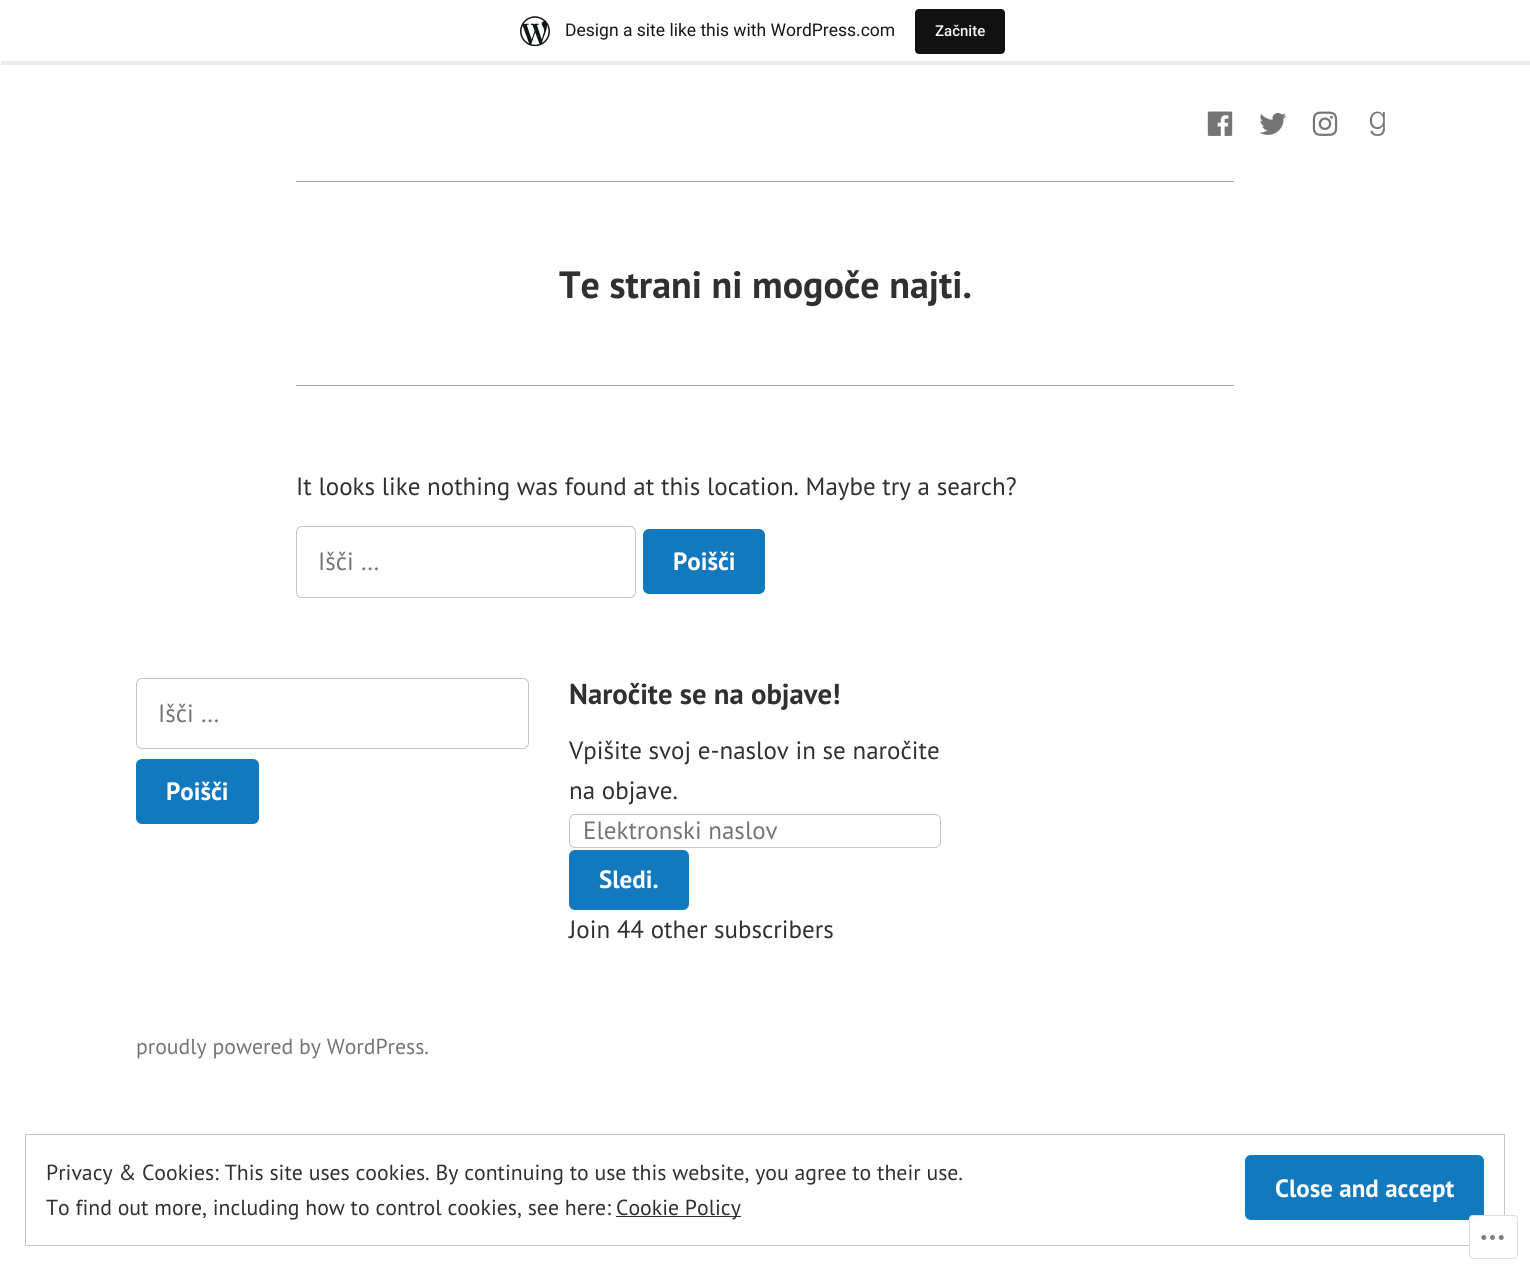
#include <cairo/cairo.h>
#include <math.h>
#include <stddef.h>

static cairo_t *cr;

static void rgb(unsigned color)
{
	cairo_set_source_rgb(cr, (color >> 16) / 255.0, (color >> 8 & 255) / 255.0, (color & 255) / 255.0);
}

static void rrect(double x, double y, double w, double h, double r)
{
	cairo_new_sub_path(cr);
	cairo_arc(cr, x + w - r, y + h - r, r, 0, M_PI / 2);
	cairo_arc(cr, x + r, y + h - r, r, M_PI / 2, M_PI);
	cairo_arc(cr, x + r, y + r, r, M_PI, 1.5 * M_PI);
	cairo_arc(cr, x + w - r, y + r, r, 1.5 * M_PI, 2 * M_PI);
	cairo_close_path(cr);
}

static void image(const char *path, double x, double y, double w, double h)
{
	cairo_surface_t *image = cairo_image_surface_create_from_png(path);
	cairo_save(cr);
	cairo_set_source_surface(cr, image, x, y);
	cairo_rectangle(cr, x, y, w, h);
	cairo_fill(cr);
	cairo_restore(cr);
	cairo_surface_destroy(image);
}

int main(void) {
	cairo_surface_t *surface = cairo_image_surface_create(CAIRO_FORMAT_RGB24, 1530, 1271);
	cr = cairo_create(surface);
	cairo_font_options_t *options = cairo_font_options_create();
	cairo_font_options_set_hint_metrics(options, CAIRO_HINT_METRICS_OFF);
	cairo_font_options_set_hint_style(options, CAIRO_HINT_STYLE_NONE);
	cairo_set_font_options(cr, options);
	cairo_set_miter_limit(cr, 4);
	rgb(0xffffff);
	cairo_paint(cr);
	cairo_set_source_rgba(cr, 0, 0, 0, 0.08);
	cairo_new_path(cr);
	cairo_move_to(cr, 1, 61);
	cairo_line_to(cr, 1, 65);
	cairo_line_to(cr, 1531, 65);
	cairo_line_to(cr, 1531, 4);
	cairo_line_to(cr, 1530, 4);
	cairo_line_to(cr, 1530, 61);
	cairo_close_path(cr);
	cairo_fill(cr);
	image("img/1.png", 520, 16, 30, 30);
	rgb(0x111111);
	rrect(915, 9, 90, 45, 4);
	cairo_fill(cr);
	image("img/2.png", 1207, 111, 26, 25);
	image("img/3.png", 1259, 112, 28, 23);
	image("img/4.png", 1312, 111, 26, 25);
	image("img/5.png", 1369, 111, 16, 25);
	rgb(0xa5a5a5);
	cairo_rectangle(cr, 296, 181, 938, 1);
	cairo_fill(cr);
	cairo_rectangle(cr, 296, 385, 938, 1);
	cairo_fill(cr);
	rrect(296.5, 526.5, 339, 71, 5.5);
	rgb(0xc5c5c5);
	cairo_set_line_width(cr, 1);
	cairo_stroke(cr);
	rgb(0x1279be);
	rrect(643, 529, 122, 65, 6);
	cairo_fill(cr);
	rrect(136.5, 678.5, 392, 70, 5.5);
	rgb(0xc5c5c5);
	cairo_stroke(cr);
	rgb(0x1279be);
	rrect(136, 759, 123, 65, 6);
	cairo_fill(cr);
	rrect(569.5, 814.5, 371, 33, 5.5);
	rgb(0xc5c5c5);
	cairo_stroke(cr);
	rgb(0x1279be);
	rrect(569, 850, 120, 60, 6);
	cairo_fill(cr);
	cairo_rectangle(cr, 25.5, 1134.5, 1479, 111);
	rgb(0xc5c5c5);
	cairo_stroke(cr);
	rgb(0x1279be);
	rrect(1245, 1155, 239, 65, 6);
	cairo_fill(cr);
	rgb(0x303030);
	cairo_rectangle(cr, 616, 1216, 125, 1);
	cairo_fill(cr);
	cairo_set_source_rgba(cr, 1, 1, 1, 0.98);
	rrect(1469, 1215, 49, 44, 4);
	cairo_fill(cr);
	rrect(1469.5, 1215.5, 48, 43, 3.5);
	cairo_set_source_rgba(cr, 0.863, 0.863, 0.871, 0.98);
	cairo_stroke(cr);
	image("img/6.png", 1481, 1235, 23, 5);
	cairo_select_font_face(cr, "Roboto", CAIRO_FONT_SLANT_NORMAL, CAIRO_FONT_WEIGHT_NORMAL);
	cairo_set_font_size(cr, 17.5);
	rgb(0x171717);
	cairo_move_to(cr, 565, 36);
	cairo_show_text(cr, "Design a site like this with WordPress.com");
	cairo_select_font_face(cr, "Roboto Medium", CAIRO_FONT_SLANT_NORMAL, CAIRO_FONT_WEIGHT_NORMAL);
	cairo_set_font_size(cr, 15);
	rgb(0xf6f7f7);
	cairo_move_to(cr, 935, 36);
	cairo_show_text(cr, "Začnite");
	cairo_select_font_face(cr, "PT Sans", CAIRO_FONT_SLANT_NORMAL, CAIRO_FONT_WEIGHT_BOLD);
	cairo_set_font_size(cr, 38);
	rgb(0x303030);
	cairo_move_to(cr, 559, 298);
	cairo_show_text(cr, "Te strani ni mogoče najti.");
	cairo_select_font_face(cr, "PT Sans", CAIRO_FONT_SLANT_NORMAL, CAIRO_FONT_WEIGHT_NORMAL);
	cairo_set_font_size(cr, 25);
	cairo_move_to(cr, 296, 495);
	cairo_show_text(cr, "It looks like nothing was found at this location. Maybe try a search?");
	rgb(0x757575);
	cairo_move_to(cr, 318, 570);
	cairo_show_text(cr, "Išči …");
	cairo_select_font_face(cr, "PT Sans", CAIRO_FONT_SLANT_NORMAL, CAIRO_FONT_WEIGHT_BOLD);
	rgb(0xffffff);
	cairo_move_to(cr, 673, 570);
	cairo_show_text(cr, "Poišči");
	cairo_select_font_face(cr, "PT Sans", CAIRO_FONT_SLANT_NORMAL, CAIRO_FONT_WEIGHT_NORMAL);
	rgb(0x757575);
	cairo_move_to(cr, 158, 722);
	cairo_show_text(cr, "Išči …");
	cairo_select_font_face(cr, "PT Sans", CAIRO_FONT_SLANT_NORMAL, CAIRO_FONT_WEIGHT_BOLD);
	rgb(0xffffff);
	cairo_move_to(cr, 166, 800);
	cairo_show_text(cr, "Poišči");
	cairo_set_font_size(cr, 28.75);
	rgb(0x303030);
	cairo_move_to(cr, 569, 704);
	cairo_show_text(cr, "Naročite se na objave!");
	cairo_select_font_face(cr, "PT Sans", CAIRO_FONT_SLANT_NORMAL, CAIRO_FONT_WEIGHT_NORMAL);
	cairo_set_font_size(cr, 25);
	cairo_move_to(cr, 569, 759);
	cairo_show_text(cr, "Vpišite svoj e-naslov in se naročite");
	cairo_move_to(cr, 569, 799);
	cairo_show_text(cr, "na objave.");
	rgb(0x757575);
	cairo_move_to(cr, 583, 839);
	cairo_show_text(cr, "Elektronski naslov");
	cairo_select_font_face(cr, "PT Sans", CAIRO_FONT_SLANT_NORMAL, CAIRO_FONT_WEIGHT_BOLD);
	rgb(0xffffff);
	cairo_move_to(cr, 599, 888);
	cairo_show_text(cr, "Sledi.");
	cairo_select_font_face(cr, "PT Sans", CAIRO_FONT_SLANT_NORMAL, CAIRO_FONT_WEIGHT_NORMAL);
	rgb(0x303030);
	cairo_move_to(cr, 569, 938);
	cairo_show_text(cr, "Join 44 other subscribers");
	cairo_set_font_size(cr, 21.75);
	rgb(0x757575);
	cairo_move_to(cr, 136, 1054);
	cairo_show_text(cr, "proudly powered by WordPress.");
	rgb(0x303030);
	cairo_move_to(cr, 46, 1180);
	cairo_show_text(cr, "Privacy & Cookies: This site uses cookies. By continuing to use this website, you agree to their use.");
	cairo_select_font_face(cr, "PT Sans", CAIRO_FONT_SLANT_NORMAL, CAIRO_FONT_WEIGHT_BOLD);
	cairo_set_font_size(cr, 25);
	rgb(0xffffff);
	cairo_move_to(cr, 1275, 1197);
	cairo_show_text(cr, "Close and accept");
	cairo_select_font_face(cr, "PT Sans", CAIRO_FONT_SLANT_NORMAL, CAIRO_FONT_WEIGHT_NORMAL);
	cairo_set_font_size(cr, 21.75);
	rgb(0x303030);
	cairo_move_to(cr, 46, 1215);
	cairo_show_text(cr, "To find out more, including how to control cookies, see here:");
	cairo_move_to(cr, 616, 1215);
	cairo_show_text(cr, "Cookie Policy");
	cairo_surface_write_to_png(surface, "page.png");
	cairo_font_options_destroy(options);
	cairo_destroy(cr);
	cairo_surface_destroy(surface);
	return 0;
}
